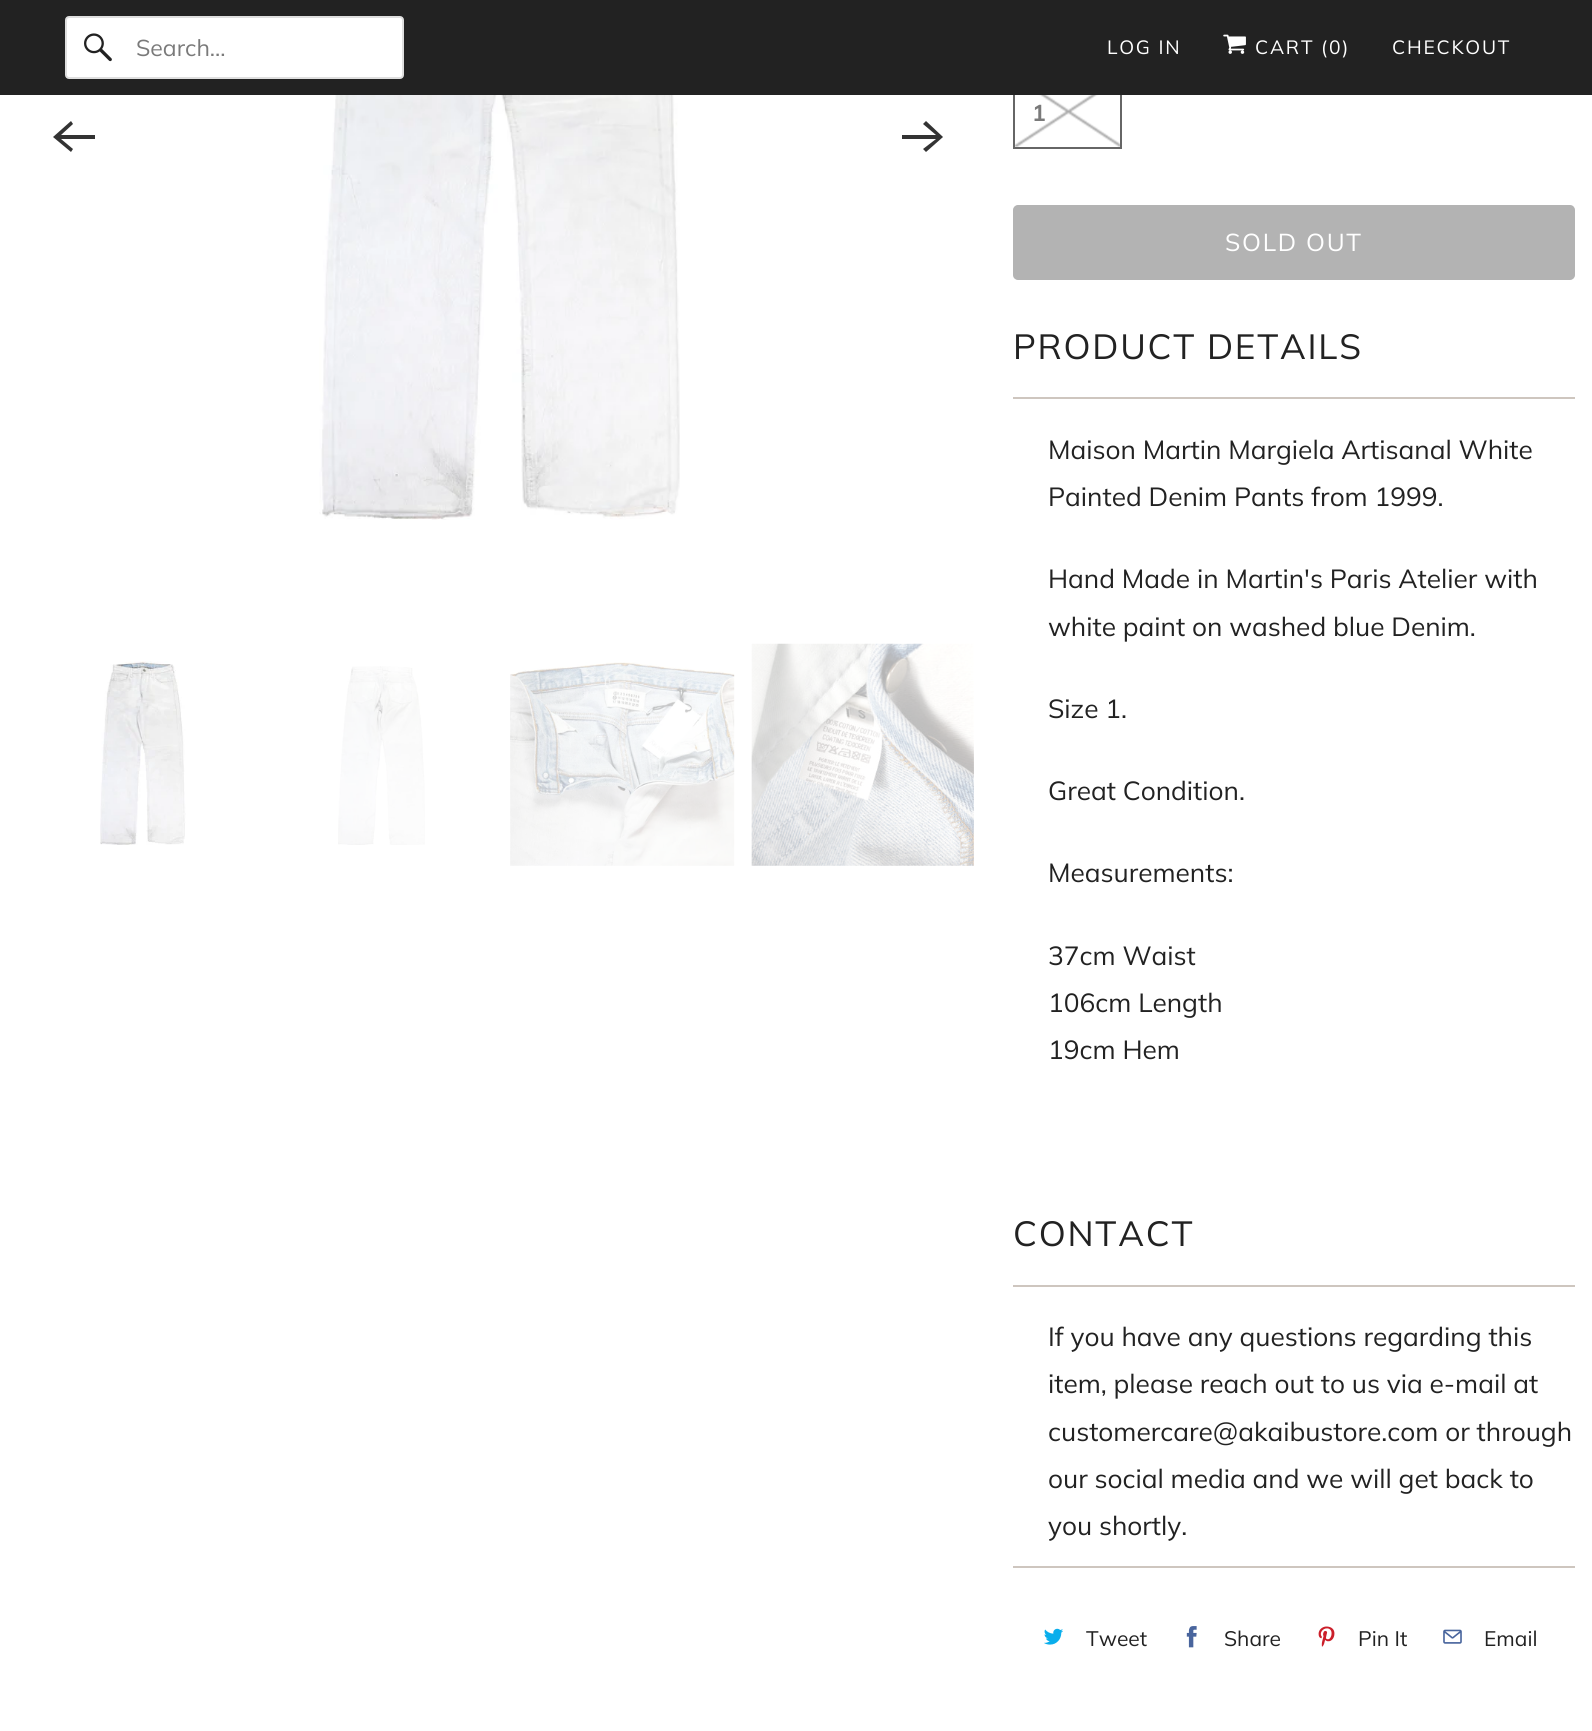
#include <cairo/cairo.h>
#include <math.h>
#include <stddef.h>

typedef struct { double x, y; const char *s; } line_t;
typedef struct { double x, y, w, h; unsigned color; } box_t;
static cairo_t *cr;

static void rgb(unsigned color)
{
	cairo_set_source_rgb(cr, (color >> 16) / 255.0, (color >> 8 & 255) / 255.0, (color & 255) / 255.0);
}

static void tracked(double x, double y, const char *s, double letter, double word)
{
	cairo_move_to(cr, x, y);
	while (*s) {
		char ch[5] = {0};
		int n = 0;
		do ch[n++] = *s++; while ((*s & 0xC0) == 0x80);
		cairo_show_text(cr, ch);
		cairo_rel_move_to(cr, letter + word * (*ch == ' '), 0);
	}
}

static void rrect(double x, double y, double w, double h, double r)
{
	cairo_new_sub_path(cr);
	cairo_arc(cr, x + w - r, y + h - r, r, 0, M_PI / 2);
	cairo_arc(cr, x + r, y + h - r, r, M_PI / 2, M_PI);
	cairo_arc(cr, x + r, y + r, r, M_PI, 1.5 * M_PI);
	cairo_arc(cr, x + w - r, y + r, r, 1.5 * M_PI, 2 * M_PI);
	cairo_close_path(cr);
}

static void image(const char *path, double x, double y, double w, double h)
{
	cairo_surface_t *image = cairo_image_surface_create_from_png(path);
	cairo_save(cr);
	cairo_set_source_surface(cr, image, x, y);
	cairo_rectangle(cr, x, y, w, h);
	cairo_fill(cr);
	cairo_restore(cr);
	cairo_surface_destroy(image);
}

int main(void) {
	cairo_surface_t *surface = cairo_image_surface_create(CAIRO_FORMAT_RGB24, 1592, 1731);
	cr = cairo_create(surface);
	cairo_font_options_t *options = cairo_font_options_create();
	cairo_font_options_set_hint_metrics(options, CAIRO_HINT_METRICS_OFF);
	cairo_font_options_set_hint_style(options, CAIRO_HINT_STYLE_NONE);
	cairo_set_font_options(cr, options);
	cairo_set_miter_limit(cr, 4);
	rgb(0xffffff);
	cairo_paint(cr);
	cairo_rectangle(cr, 1014, 76, 107, 72);
	rgb(0x666666);
	cairo_stroke(cr);
	rgb(0x222222);
	cairo_rectangle(cr, 0, 0, 1592, 95);
	cairo_fill(cr);
	rgb(0xffffff);
	rrect(66, 17, 337, 61, 3);
	cairo_fill_preserve(cr);
	rgb(0xdfdfdf);
	cairo_stroke(cr);
	image("img/1.png", 84, 33, 28, 29);
	image("img/2.png", 1223, 34, 23, 20);
	rgb(0x333333);
	cairo_new_path(cr);
	cairo_move_to(cr, 95, 135);
	cairo_line_to(cr, 61, 135);
	cairo_line_to(cr, 73, 124);
	cairo_line_to(cr, 71, 121);
	cairo_line_to(cr, 53, 137);
	cairo_line_to(cr, 71, 152);
	cairo_line_to(cr, 73, 149);
	cairo_line_to(cr, 61, 139);
	cairo_line_to(cr, 95, 139);
	cairo_close_path(cr);
	cairo_fill(cr);
	image("img/3.png", 319, 95, 361, 425);
	cairo_new_path(cr);
	cairo_move_to(cr, 902, 139);
	cairo_line_to(cr, 936, 139);
	cairo_line_to(cr, 923, 149);
	cairo_line_to(cr, 926, 152);
	cairo_line_to(cr, 943, 137);
	cairo_line_to(cr, 926, 121);
	cairo_line_to(cr, 923, 124);
	cairo_line_to(cr, 936, 135);
	cairo_line_to(cr, 902, 135);
	cairo_close_path(cr);
	cairo_fill(cr);
	image("img/4.png", 100, 661, 86, 184);
	image("img/5.png", 338, 666, 87, 179);
	image("img/6.png", 510, 662, 225, 204);
	image("img/7.png", 751, 643, 223, 223);
	rgb(0xb3b3b3);
	rrect(1014, 206, 560, 73, 4);
	cairo_fill_preserve(cr);
	cairo_stroke(cr);
	{
		static const box_t items[] = {
			{1013, 397, 562, 2, 0xcec6bf},
			{1013, 1285, 562, 2, 0xcec6bf},
			{1013, 1566, 562, 2, 0xcec6bf},
		};
		for (size_t i = 0; i < sizeof items / sizeof *items; i++) {
			rgb(items[i].color);
			cairo_rectangle(cr, items[i].x, items[i].y, items[i].w, items[i].h);
			cairo_fill(cr);
		}
	}
	image("img/9.png", 1044, 1628, 19, 17);
	image("img/10.png", 1186, 1626, 11, 22);
	image("img/11.png", 1318, 1626, 17, 21);
	image("img/12.png", 1443, 1629, 19, 15);
	cairo_select_font_face(cr, "Muli", CAIRO_FONT_SLANT_NORMAL, CAIRO_FONT_WEIGHT_NORMAL);
	cairo_set_font_size(cr, 23);
	rgb(0x7a7a7a);
	cairo_move_to(cr, 136, 56);
	cairo_show_text(cr, "Search...");
	cairo_set_font_size(cr, 19.25);
	rgb(0xffffff);
	{
		static const line_t items[] = {
			{1107, 54, "LOG IN"},
			{1255, 54, "CART (0)"},
			{1392, 54, "CHECKOUT"},
		};
		for (size_t i = 0; i < sizeof items / sizeof *items; i++) {
			tracked(items[i].x, items[i].y, items[i].s, 1.75, 0);
		}
	}
	cairo_select_font_face(cr, "Muli", CAIRO_FONT_SLANT_NORMAL, CAIRO_FONT_WEIGHT_BOLD);
	cairo_set_font_size(cr, 23);
	rgb(0x7a7a7a);
	cairo_move_to(cr, 1032, 121);
	cairo_show_text(cr, "1");
	image("img/8.png", 1015, 95, 105, 52);
	cairo_select_font_face(cr, "Muli", CAIRO_FONT_SLANT_NORMAL, CAIRO_FONT_WEIGHT_NORMAL);
	cairo_set_font_size(cr, 24.5);
	rgb(0xffffff);
	tracked(1225, 251, "SOLD OUT", 1.75, 0);
	cairo_set_font_size(cr, 35);
	rgb(0x222222);
	tracked(1013, 359, "PRODUCT DETAILS", 1.75, 0);
	cairo_set_font_size(cr, 26.25);
	{
		static const line_t items[] = {
			{1048, 459, "Maison Martin Margiela Artisanal White"},
			{1048, 506, "Painted Denim Pants from 1999."},
			{1048, 588, "Hand Made in Martin's Paris Atelier with"},
			{1048, 636, "white paint on washed blue Denim."},
			{1048, 718, "Size 1."},
			{1048, 800, "Great Condition."},
			{1048, 882, "Measurements:"},
			{1048, 965, "37cm Waist"},
			{1048, 1012, "106cm Length"},
			{1048, 1059, "19cm Hem"},
		};
		for (size_t i = 0; i < sizeof items / sizeof *items; i++) {
			cairo_move_to(cr, items[i].x, items[i].y);
			cairo_show_text(cr, items[i].s);
		}
	}
	cairo_set_font_size(cr, 35);
	tracked(1013, 1246, "CONTACT", 1.75, 0);
	cairo_set_font_size(cr, 26.25);
	{
		static const line_t items[] = {
			{1048, 1346, "If you have any questions regarding this"},
			{1048, 1393, "item, please reach out to us via e-mail at"},
			{1048, 1441, "customercare@akaibustore.com or through"},
			{1048, 1488, "our social media and we will get back to"},
			{1048, 1535, "you shortly."},
		};
		for (size_t i = 0; i < sizeof items / sizeof *items; i++) {
			cairo_move_to(cr, items[i].x, items[i].y);
			cairo_show_text(cr, items[i].s);
		}
	}
	cairo_set_font_size(cr, 21);
	{
		static const line_t items[] = {
			{1086, 1646, "Tweet"},
			{1224, 1646, "Share"},
			{1358, 1646, "Pin It"},
			{1484, 1646, "Email"},
		};
		for (size_t i = 0; i < sizeof items / sizeof *items; i++) {
			cairo_move_to(cr, items[i].x, items[i].y);
			cairo_show_text(cr, items[i].s);
		}
	}
	cairo_surface_write_to_png(surface, "page.png");
	cairo_font_options_destroy(options);
	cairo_destroy(cr);
	cairo_surface_destroy(surface);
	return 0;
}
